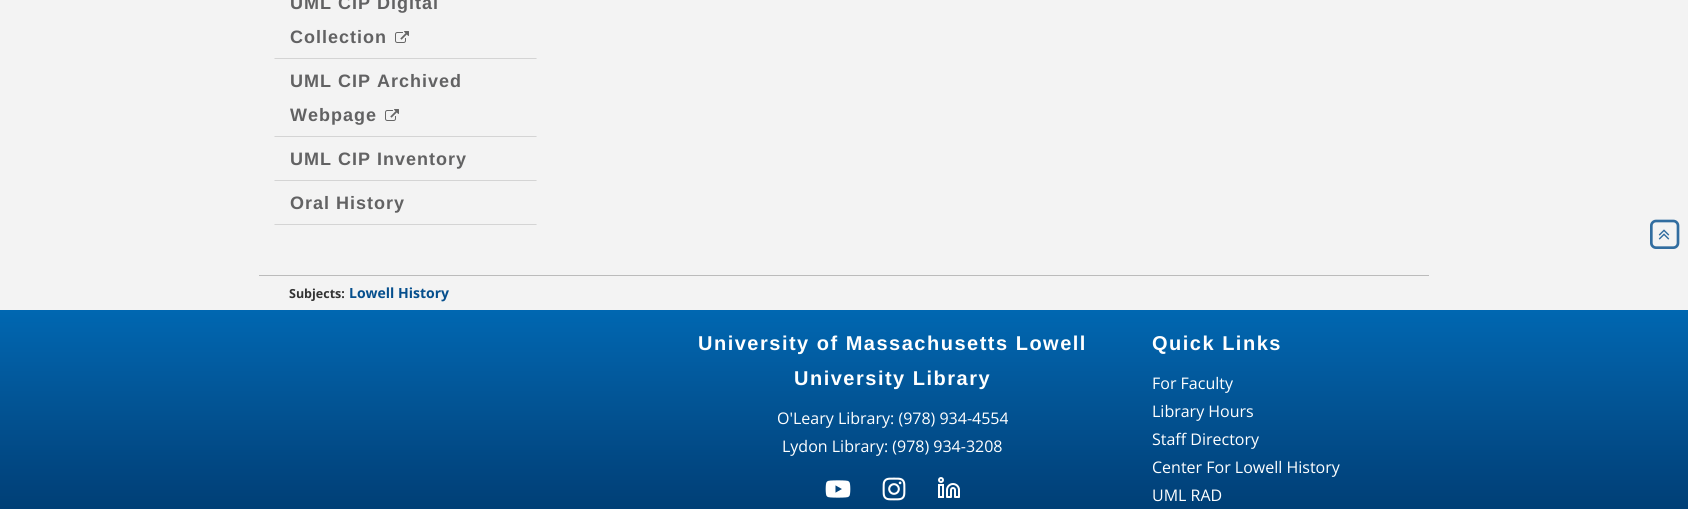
#include <cairo/cairo.h>
#include <math.h>
#include <stddef.h>

typedef struct { double x, y; const char *s; } line_t;
static cairo_t *cr;

static void rgb(unsigned color)
{
	cairo_set_source_rgb(cr, (color >> 16) / 255.0, (color >> 8 & 255) / 255.0, (color & 255) / 255.0);
}

static void tracked(double x, double y, const char *s, double letter, double word)
{
	cairo_move_to(cr, x, y);
	while (*s) {
		char ch[5] = {0};
		int n = 0;
		do ch[n++] = *s++; while ((*s & 0xC0) == 0x80);
		cairo_show_text(cr, ch);
		cairo_rel_move_to(cr, letter + word * (*ch == ' '), 0);
	}
}

static void image(const char *path, double x, double y, double w, double h)
{
	cairo_surface_t *image = cairo_image_surface_create_from_png(path);
	cairo_save(cr);
	cairo_set_source_surface(cr, image, x, y);
	cairo_rectangle(cr, x, y, w, h);
	cairo_fill(cr);
	cairo_restore(cr);
	cairo_surface_destroy(image);
}

int main(void) {
	cairo_surface_t *surface = cairo_image_surface_create(CAIRO_FORMAT_RGB24, 1688, 509);
	cr = cairo_create(surface);
	cairo_font_options_t *options = cairo_font_options_create();
	cairo_font_options_set_hint_metrics(options, CAIRO_HINT_METRICS_OFF);
	cairo_font_options_set_hint_style(options, CAIRO_HINT_STYLE_NONE);
	cairo_set_font_options(cr, options);
	cairo_set_miter_limit(cr, 4);
	cairo_pattern_t *gradient;
	rgb(0xf3f3f3);
	cairo_paint(cr);
	rgb(0xd4d4d4);
	cairo_new_path(cr);
	cairo_move_to(cr, 537, 59);
	cairo_line_to(cr, 274, 59);
	cairo_line_to(cr, 275, 58);
	cairo_line_to(cr, 536, 58);
	cairo_close_path(cr);
	cairo_fill(cr);
	image("img/1.png", 395, 31, 14, 12);
	cairo_new_path(cr);
	cairo_move_to(cr, 537, 137);
	cairo_line_to(cr, 274, 137);
	cairo_line_to(cr, 275, 136);
	cairo_line_to(cr, 536, 136);
	cairo_close_path(cr);
	cairo_fill(cr);
	image("img/1.png", 385, 109, 14, 12);
	cairo_new_path(cr);
	cairo_move_to(cr, 537, 181);
	cairo_line_to(cr, 274, 181);
	cairo_line_to(cr, 275, 180);
	cairo_line_to(cr, 536, 180);
	cairo_close_path(cr);
	cairo_fill(cr);
	cairo_new_path(cr);
	cairo_move_to(cr, 537, 225);
	cairo_line_to(cr, 274, 225);
	cairo_line_to(cr, 275, 224);
	cairo_line_to(cr, 536, 224);
	cairo_close_path(cr);
	cairo_fill(cr);
	image("img/2.png", 1650, 219, 30, 30);
	image("img/3.png", 1658, 229, 12, 11);
	rgb(0xbbbbbb);
	cairo_rectangle(cr, 259, 275, 1170, 1);
	cairo_fill(cr);
	gradient = cairo_pattern_create_linear(844, 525, 844, 310);
	cairo_pattern_add_color_stop_rgba(gradient, 0, 0, 0.235, 0.443, 1);
	cairo_pattern_add_color_stop_rgba(gradient, 0.25, 0.004, 0.275, 0.506, 1);
	cairo_pattern_add_color_stop_rgba(gradient, 0.5, 0.008, 0.318, 0.565, 1);
	cairo_pattern_add_color_stop_rgba(gradient, 0.75, 0.008, 0.361, 0.631, 1);
	cairo_pattern_add_color_stop_rgba(gradient, 1, 0, 0.404, 0.694, 1);
	cairo_set_source(cr, gradient);
	cairo_pattern_destroy(gradient);
	cairo_rectangle(cr, 0, 310, 1688, 199);
	cairo_fill(cr);
	image("img/4.png", 825, 480, 26, 18);
	image("img/5.png", 882, 477, 24, 24);
	image("img/6.png", 938, 477, 22, 21);
	cairo_select_font_face(cr, "Liberation Sans", CAIRO_FONT_SLANT_NORMAL, CAIRO_FONT_WEIGHT_BOLD);
	cairo_set_font_size(cr, 18);
	rgb(0x626263);
	{
		static const line_t items[] = {
			{290, 9, "UML CIP Digital"},
			{290, 43, "Collection"},
			{290, 87, "UML CIP Archived"},
			{290, 121, "Webpage"},
			{290, 165, "UML CIP Inventory"},
			{290, 209, "Oral History"},
		};
		for (size_t i = 0; i < sizeof items / sizeof *items; i++) {
			tracked(items[i].x, items[i].y, items[i].s, 1, 0);
		}
	}
	cairo_select_font_face(cr, "Open Sans", CAIRO_FONT_SLANT_NORMAL, CAIRO_FONT_WEIGHT_BOLD);
	cairo_set_font_size(cr, 12.5);
	rgb(0x333333);
	cairo_move_to(cr, 289, 298);
	cairo_show_text(cr, "Subjects:");
	cairo_set_font_size(cr, 14);
	rgb(0x064f8d);
	cairo_move_to(cr, 349, 298);
	cairo_show_text(cr, "Lowell History");
	cairo_select_font_face(cr, "Liberation Sans", CAIRO_FONT_SLANT_NORMAL, CAIRO_FONT_WEIGHT_BOLD);
	cairo_set_font_size(cr, 20);
	rgb(0xffffff);
	tracked(698, 350, "University of Massachusetts Lowell", 1.5, 0);
	tracked(794, 385, "University Library", 1.5, 0);
	cairo_select_font_face(cr, "Open Sans", CAIRO_FONT_SLANT_NORMAL, CAIRO_FONT_WEIGHT_NORMAL);
	cairo_set_font_size(cr, 16);
	cairo_move_to(cr, 777, 424);
	cairo_show_text(cr, "O'Leary Library: (978) 934-4554");
	cairo_move_to(cr, 782, 452);
	cairo_show_text(cr, "Lydon Library: (978) 934-3208");
	cairo_select_font_face(cr, "Liberation Sans", CAIRO_FONT_SLANT_NORMAL, CAIRO_FONT_WEIGHT_BOLD);
	cairo_set_font_size(cr, 20);
	tracked(1152, 350, "Quick Links", 1.5, 0);
	cairo_select_font_face(cr, "Open Sans", CAIRO_FONT_SLANT_NORMAL, CAIRO_FONT_WEIGHT_NORMAL);
	cairo_set_font_size(cr, 16);
	{
		static const line_t items[] = {
			{1152, 389, "For Faculty"},
			{1152, 417, "Library Hours"},
			{1152, 445, "Staff Directory"},
			{1152, 473, "Center For Lowell History"},
			{1152, 501, "UML RAD"},
		};
		for (size_t i = 0; i < sizeof items / sizeof *items; i++) {
			cairo_move_to(cr, items[i].x, items[i].y);
			cairo_show_text(cr, items[i].s);
		}
	}
	cairo_surface_write_to_png(surface, "page.png");
	cairo_font_options_destroy(options);
	cairo_destroy(cr);
	cairo_surface_destroy(surface);
	return 0;
}
